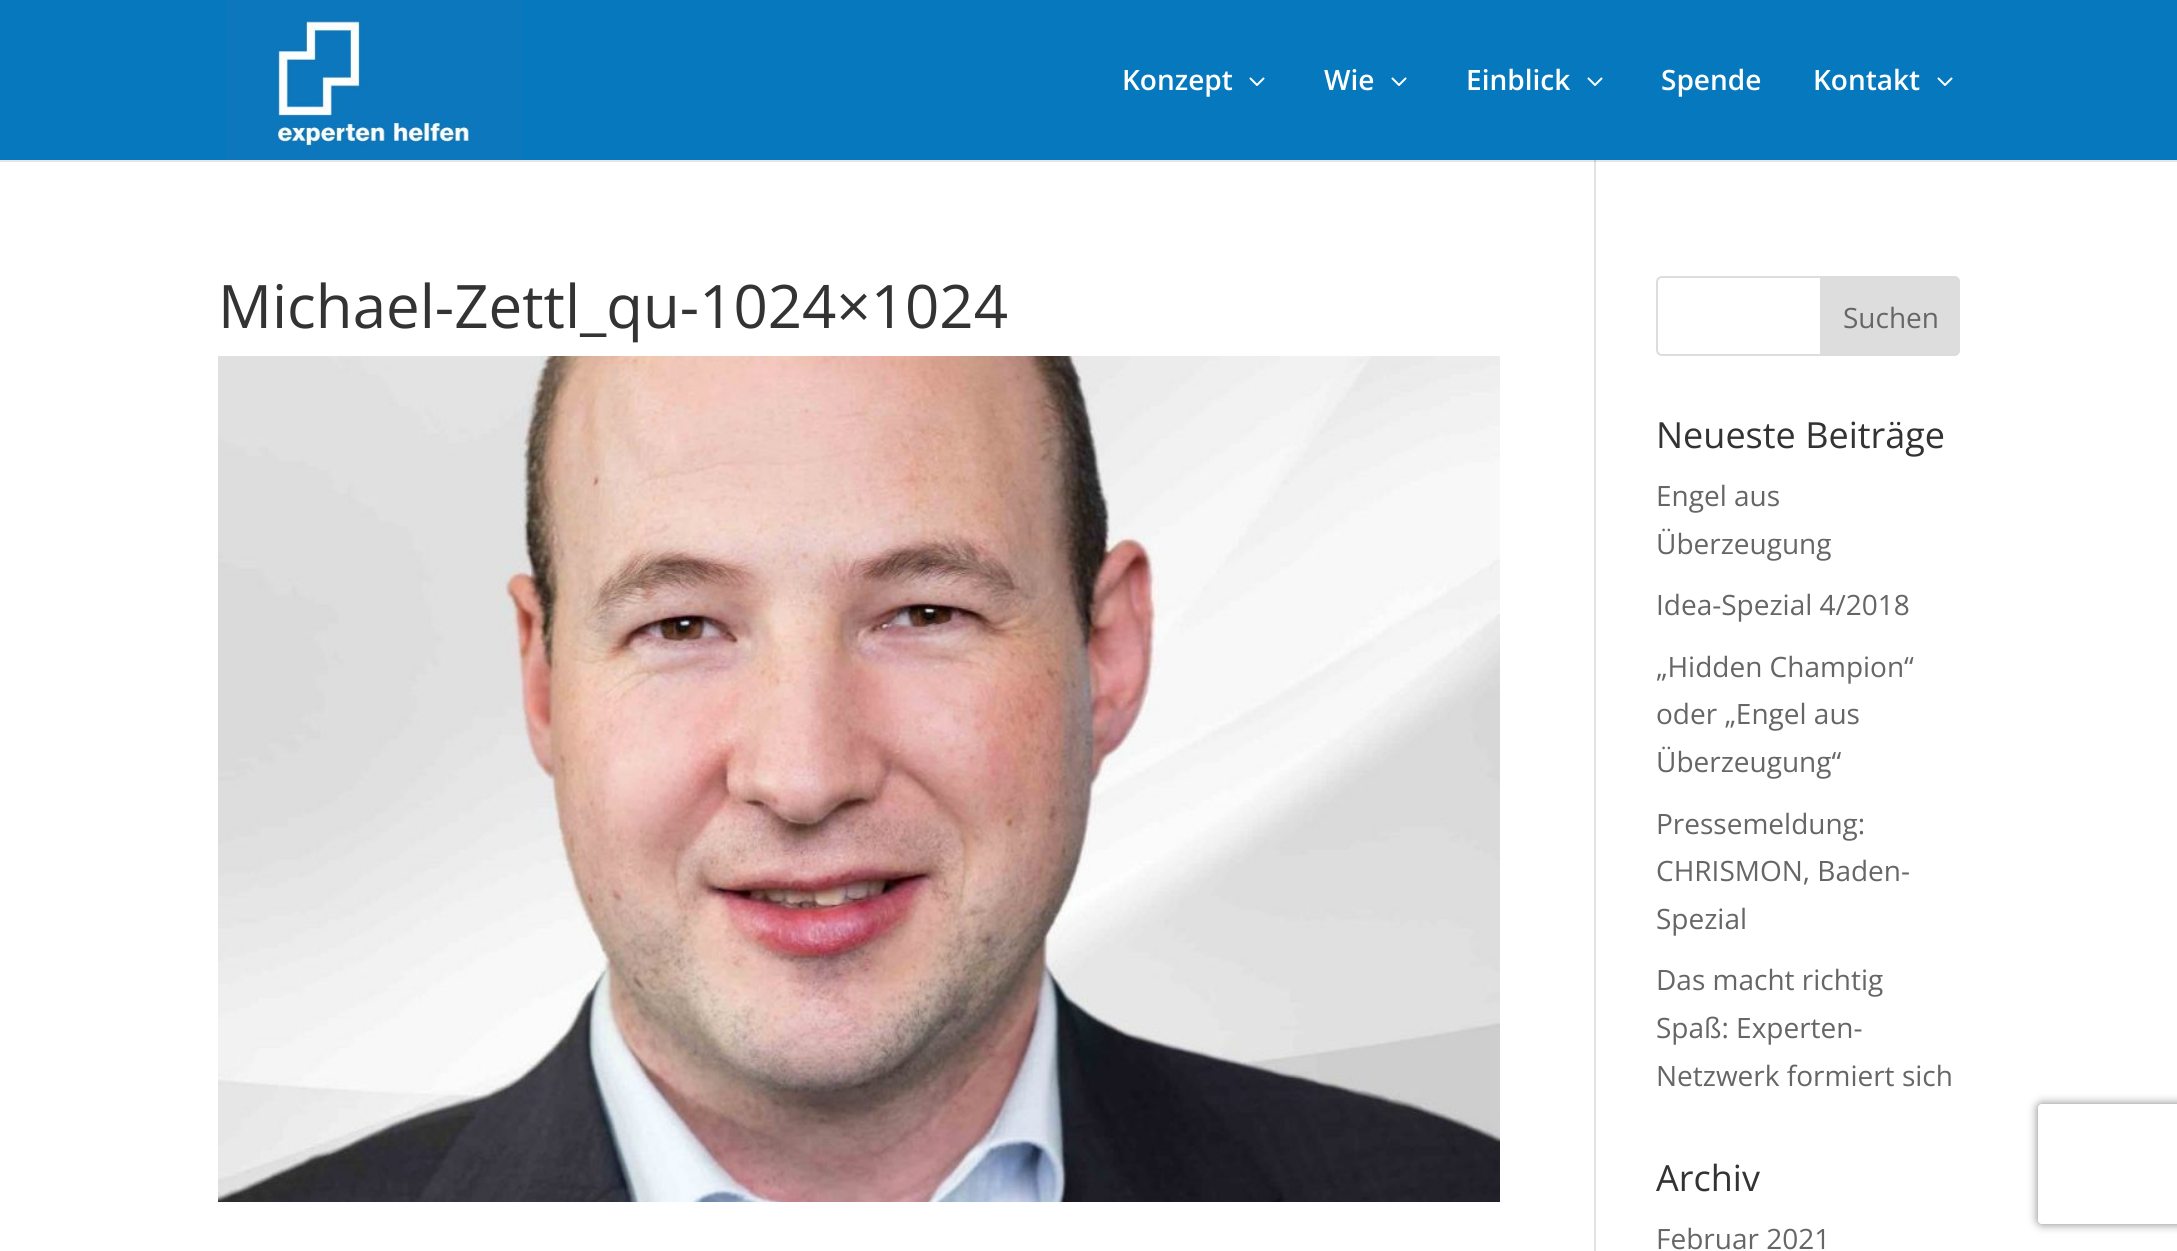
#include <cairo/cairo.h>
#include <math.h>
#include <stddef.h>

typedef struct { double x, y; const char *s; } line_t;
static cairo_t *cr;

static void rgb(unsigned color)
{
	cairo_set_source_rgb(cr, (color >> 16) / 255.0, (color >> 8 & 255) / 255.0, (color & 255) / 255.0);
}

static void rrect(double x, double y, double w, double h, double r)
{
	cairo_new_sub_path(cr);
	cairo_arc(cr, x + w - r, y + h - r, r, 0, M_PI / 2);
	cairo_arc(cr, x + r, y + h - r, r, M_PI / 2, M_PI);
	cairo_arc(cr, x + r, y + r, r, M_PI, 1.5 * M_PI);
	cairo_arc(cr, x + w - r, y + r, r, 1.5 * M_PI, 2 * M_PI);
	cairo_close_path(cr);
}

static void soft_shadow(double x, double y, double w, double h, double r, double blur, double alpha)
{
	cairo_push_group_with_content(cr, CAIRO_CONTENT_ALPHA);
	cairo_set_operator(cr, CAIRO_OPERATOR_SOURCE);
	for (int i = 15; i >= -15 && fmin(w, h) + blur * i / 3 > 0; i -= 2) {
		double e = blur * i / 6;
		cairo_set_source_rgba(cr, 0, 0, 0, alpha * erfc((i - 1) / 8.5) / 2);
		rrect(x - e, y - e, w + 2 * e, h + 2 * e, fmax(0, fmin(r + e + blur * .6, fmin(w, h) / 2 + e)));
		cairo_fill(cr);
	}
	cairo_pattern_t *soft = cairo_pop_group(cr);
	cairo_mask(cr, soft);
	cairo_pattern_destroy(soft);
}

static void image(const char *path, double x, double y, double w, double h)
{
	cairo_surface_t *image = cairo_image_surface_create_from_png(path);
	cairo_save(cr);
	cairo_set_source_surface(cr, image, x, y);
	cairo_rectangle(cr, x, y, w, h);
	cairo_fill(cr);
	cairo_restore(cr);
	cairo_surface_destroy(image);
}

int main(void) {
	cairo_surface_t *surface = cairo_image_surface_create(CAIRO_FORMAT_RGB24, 2177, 1251);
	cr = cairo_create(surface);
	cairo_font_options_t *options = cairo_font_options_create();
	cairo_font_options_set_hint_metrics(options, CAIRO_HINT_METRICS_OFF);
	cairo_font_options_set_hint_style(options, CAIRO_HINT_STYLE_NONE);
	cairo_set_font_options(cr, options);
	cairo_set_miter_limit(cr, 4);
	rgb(0xffffff);
	cairo_paint(cr);
	rgb(0xe6e6e6);
	cairo_rectangle(cr, 0, 160, 2177, 2);
	cairo_fill(cr);
	rgb(0x0578be);
	cairo_rectangle(cr, 0, 0, 2177, 160);
	cairo_fill(cr);
	image("img/1.png", 226, 0, 296, 160);
	image("img/2.png", 1249, 77, 16, 9);
	image("img/2.png", 1391, 77, 16, 9);
	image("img/2.png", 1587, 77, 16, 9);
	image("img/2.png", 1937, 77, 16, 9);
	rgb(0xe2e2e2);
	cairo_rectangle(cr, 1594, 160, 2, 1091);
	cairo_fill(cr);
	rgb(0xcbcbcb);
	cairo_rectangle(cr, 1594, 160, 2, 2);
	cairo_fill(cr);
	image("img/3.png", 218, 356, 1282, 846);
	rrect(1657, 277, 302, 78, 5);
	rgb(0xdddddd);
	cairo_stroke(cr);
	cairo_new_path(cr);
	cairo_move_to(cr, 1821, 277);
	cairo_line_to(cr, 1954, 277);
	cairo_curve_to(cr, 1957, 277, 1959, 279, 1959, 282);
	cairo_line_to(cr, 1959, 350);
	cairo_curve_to(cr, 1959, 353, 1957, 355, 1954, 355);
	cairo_line_to(cr, 1821, 355);
	cairo_close_path(cr);
	cairo_fill_preserve(cr);
	cairo_stroke(cr);
	cairo_save(cr);
	cairo_set_fill_rule(cr, CAIRO_FILL_RULE_EVEN_ODD);
	cairo_new_path(cr);
	cairo_move_to(cr, 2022, 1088);
	cairo_line_to(cr, 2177, 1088);
	cairo_line_to(cr, 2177, 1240);
	cairo_line_to(cr, 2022, 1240);
	cairo_close_path(cr);
	cairo_move_to(cr, 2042, 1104);
	cairo_line_to(cr, 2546, 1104);
	cairo_curve_to(cr, 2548, 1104, 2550, 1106, 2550, 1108);
	cairo_line_to(cr, 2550, 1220);
	cairo_curve_to(cr, 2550, 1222, 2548, 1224, 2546, 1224);
	cairo_line_to(cr, 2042, 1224);
	cairo_curve_to(cr, 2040, 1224, 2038, 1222, 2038, 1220);
	cairo_line_to(cr, 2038, 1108);
	cairo_curve_to(cr, 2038, 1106, 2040, 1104, 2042, 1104);
	cairo_close_path(cr);
	cairo_clip(cr);
	rgb(0x808080);
	soft_shadow(2038, 1104, 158, 120, 4, 5, 1);
	cairo_restore(cr);
	cairo_select_font_face(cr, "Open Sans SemiBold", CAIRO_FONT_SLANT_NORMAL, CAIRO_FONT_WEIGHT_NORMAL);
	cairo_set_font_size(cr, 28);
	rgb(0xffffff);
	{
		static const line_t items[] = {
			{1122, 90, "Konzept"},
			{1324, 90, "Wie"},
			{1466, 90, "Einblick"},
			{1661, 90, "Spende"},
			{1813, 90, "Kontakt"},
		};
		for (size_t i = 0; i < sizeof items / sizeof *items; i++) {
			cairo_move_to(cr, items[i].x, items[i].y);
			cairo_show_text(cr, items[i].s);
		}
	}
	cairo_select_font_face(cr, "Open Sans", CAIRO_FONT_SLANT_NORMAL, CAIRO_FONT_WEIGHT_NORMAL);
	cairo_set_font_size(cr, 60);
	rgb(0x333333);
	cairo_move_to(cr, 218, 328);
	cairo_show_text(cr, "Michael-Zettl_qu-1024×1024");
	cairo_set_font_size(cr, 28);
	rgb(0x666666);
	cairo_move_to(cr, 1843, 328);
	cairo_show_text(cr, "Suchen");
	cairo_set_font_size(cr, 36);
	rgb(0x333333);
	cairo_move_to(cr, 1656, 448);
	cairo_show_text(cr, "Neueste Beiträge");
	cairo_set_font_size(cr, 28);
	rgb(0x666666);
	{
		static const line_t items[] = {
			{1656, 506, "Engel aus"},
			{1656, 554, "Überzeugung"},
			{1656, 615, "Idea-Spezial 4/2018"},
			{1656, 677, "„Hidden Champion“"},
			{1656, 724, "oder „Engel aus"},
			{1656, 772, "Überzeugung“"},
			{1656, 834, "Pressemeldung:"},
			{1656, 881, "CHRISMON, Baden-"},
			{1656, 929, "Spezial"},
			{1656, 990, "Das macht richtig"},
			{1656, 1038, "Spaß: Experten-"},
			{1656, 1086, "Netzwerk formiert sich"},
		};
		for (size_t i = 0; i < sizeof items / sizeof *items; i++) {
			cairo_move_to(cr, items[i].x, items[i].y);
			cairo_show_text(cr, items[i].s);
		}
	}
	cairo_set_font_size(cr, 36);
	rgb(0x333333);
	cairo_move_to(cr, 1656, 1191);
	cairo_show_text(cr, "Archiv");
	cairo_set_font_size(cr, 28);
	rgb(0x666666);
	cairo_move_to(cr, 1656, 1249);
	cairo_show_text(cr, "Februar 2021");
	cairo_surface_write_to_png(surface, "page.png");
	cairo_font_options_destroy(options);
	cairo_destroy(cr);
	cairo_surface_destroy(surface);
	return 0;
}
